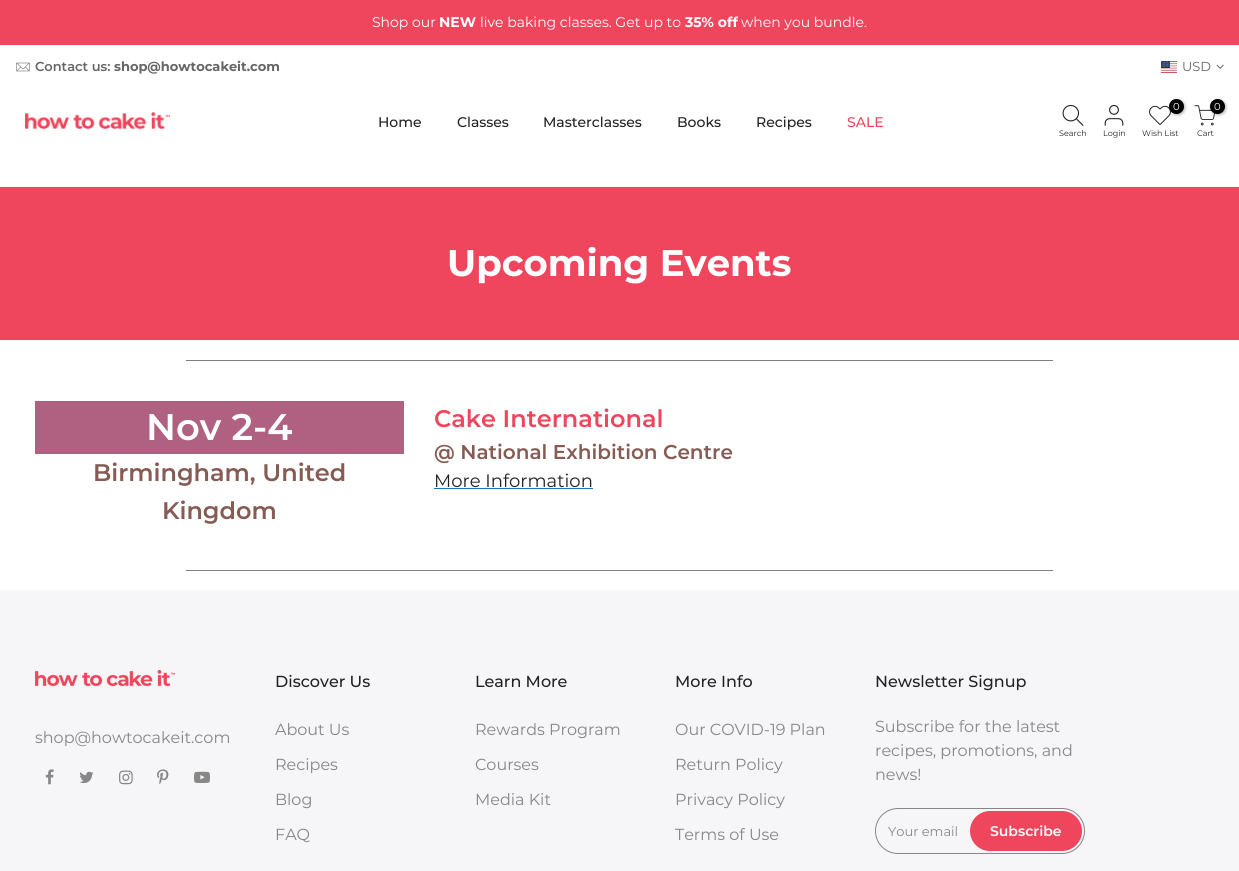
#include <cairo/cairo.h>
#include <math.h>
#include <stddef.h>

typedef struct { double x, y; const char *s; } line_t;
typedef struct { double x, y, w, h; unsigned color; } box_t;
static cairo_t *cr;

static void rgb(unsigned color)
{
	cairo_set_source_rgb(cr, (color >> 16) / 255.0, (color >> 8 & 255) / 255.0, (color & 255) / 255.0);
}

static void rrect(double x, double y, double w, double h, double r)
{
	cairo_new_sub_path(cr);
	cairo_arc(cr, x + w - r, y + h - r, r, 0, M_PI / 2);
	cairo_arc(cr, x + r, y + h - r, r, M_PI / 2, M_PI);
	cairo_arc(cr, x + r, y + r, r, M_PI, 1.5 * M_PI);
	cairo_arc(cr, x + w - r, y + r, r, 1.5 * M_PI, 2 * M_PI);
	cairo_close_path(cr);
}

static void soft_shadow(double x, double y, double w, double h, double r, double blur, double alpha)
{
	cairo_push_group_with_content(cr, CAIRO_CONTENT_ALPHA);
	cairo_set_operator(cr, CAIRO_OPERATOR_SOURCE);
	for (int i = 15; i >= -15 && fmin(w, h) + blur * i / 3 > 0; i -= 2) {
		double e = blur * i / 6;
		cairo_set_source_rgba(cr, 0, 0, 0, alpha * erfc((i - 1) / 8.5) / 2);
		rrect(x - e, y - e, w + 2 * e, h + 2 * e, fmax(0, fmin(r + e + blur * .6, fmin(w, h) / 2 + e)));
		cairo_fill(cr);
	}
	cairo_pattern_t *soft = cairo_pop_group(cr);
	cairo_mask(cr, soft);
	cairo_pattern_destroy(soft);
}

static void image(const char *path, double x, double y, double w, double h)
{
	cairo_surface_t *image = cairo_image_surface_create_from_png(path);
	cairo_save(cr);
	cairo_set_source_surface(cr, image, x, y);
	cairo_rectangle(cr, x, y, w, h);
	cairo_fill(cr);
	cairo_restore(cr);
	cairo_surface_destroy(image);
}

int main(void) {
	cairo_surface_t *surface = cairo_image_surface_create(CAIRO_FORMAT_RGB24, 1239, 871);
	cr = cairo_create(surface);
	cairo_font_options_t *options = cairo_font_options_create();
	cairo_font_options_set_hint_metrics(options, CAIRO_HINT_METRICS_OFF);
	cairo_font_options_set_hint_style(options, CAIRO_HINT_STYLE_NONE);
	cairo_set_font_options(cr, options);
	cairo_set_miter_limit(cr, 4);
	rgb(0xffffff);
	cairo_paint(cr);
	rgb(0xef465d);
	cairo_rectangle(cr, 0, 0, 1239, 45);
	cairo_fill(cr);
	image("img/1.png", 16, 62, 14, 10);
	image("img/2.png", 1161, 61, 16, 12);
	image("img/3.png", 1216, 64, 8, 5);
	image("img/4.png", 25, 112, 145, 17);
	image("img/5.png", 1062, 104, 22, 22);
	image("img/6.png", 1104, 104, 20, 22);
	image("img/7.png", 1149, 105, 22, 20);
	rgb(0x000000);
	soft_shadow(1170, 100, 15, 15, 7.5, 1.5, 0.3);
	rgb(0x000000);
	cairo_arc(cr, 1176.5, 106.5, 7.5, 0, 2 * M_PI);
	cairo_fill(cr);
	image("img/8.png", 1194, 105, 21, 21);
	rgb(0x000000);
	soft_shadow(1211, 100, 15, 15, 7.5, 1.5, 0.3);
	rgb(0x000000);
	cairo_arc(cr, 1217.5, 106.5, 7.5, 0, 2 * M_PI);
	cairo_fill(cr);
	{
		static const box_t items[] = {
			{0, 187, 1239, 153, 0xf0465d},
			{186, 360, 867, 1, 0x807e7e},
			{35, 401, 369, 53, 0xb06081},
			{434, 488, 159, 1, 0x1e73be},
			{186, 570, 867, 1, 0x807e7e},
			{0, 590, 1239, 281, 0xf6f6f8},
		};
		for (size_t i = 0; i < sizeof items / sizeof *items; i++) {
			rgb(items[i].color);
			cairo_rectangle(cr, items[i].x, items[i].y, items[i].w, items[i].h);
			cairo_fill(cr);
		}
	}
	image("img/9.png", 35, 670, 140, 17);
	image("img/10.png", 45, 769, 9, 16);
	image("img/11.png", 79, 771, 15, 13);
	image("img/12.png", 119, 770, 14, 15);
	image("img/13.png", 157, 769, 12, 16);
	image("img/14.png", 194, 771, 16, 12);
	rrect(875.5, 808.5, 209, 45, 22.5);
	rgb(0x878787);
	cairo_set_line_width(cr, 1);
	cairo_stroke(cr);
	rgb(0xef465d);
	rrect(970, 811, 112, 40, 20);
	cairo_fill(cr);
	cairo_select_font_face(cr, "Montserrat", CAIRO_FONT_SLANT_NORMAL, CAIRO_FONT_WEIGHT_NORMAL);
	cairo_set_font_size(cr, 14);
	rgb(0xffffff);
	cairo_move_to(cr, 372, 27);
	cairo_show_text(cr, "Shop our");
	cairo_select_font_face(cr, "Montserrat", CAIRO_FONT_SLANT_NORMAL, CAIRO_FONT_WEIGHT_BOLD);
	cairo_move_to(cr, 439, 27);
	cairo_show_text(cr, "NEW");
	cairo_select_font_face(cr, "Montserrat", CAIRO_FONT_SLANT_NORMAL, CAIRO_FONT_WEIGHT_NORMAL);
	cairo_move_to(cr, 480, 27);
	cairo_show_text(cr, "live baking classes. Get up to");
	cairo_select_font_face(cr, "Montserrat", CAIRO_FONT_SLANT_NORMAL, CAIRO_FONT_WEIGHT_BOLD);
	cairo_move_to(cr, 685, 27);
	cairo_show_text(cr, "35% off");
	cairo_select_font_face(cr, "Montserrat", CAIRO_FONT_SLANT_NORMAL, CAIRO_FONT_WEIGHT_NORMAL);
	cairo_move_to(cr, 741, 27);
	cairo_show_text(cr, "when you bundle.");
	cairo_select_font_face(cr, "Montserrat SemiBold", CAIRO_FONT_SLANT_NORMAL, CAIRO_FONT_WEIGHT_NORMAL);
	cairo_set_font_size(cr, 13);
	rgb(0x676667);
	cairo_move_to(cr, 35, 71);
	cairo_show_text(cr, "Contact us:");
	cairo_select_font_face(cr, "Montserrat", CAIRO_FONT_SLANT_NORMAL, CAIRO_FONT_WEIGHT_BOLD);
	cairo_move_to(cr, 114, 71);
	cairo_show_text(cr, "shop@howtocakeit.com");
	cairo_select_font_face(cr, "Montserrat", CAIRO_FONT_SLANT_NORMAL, CAIRO_FONT_WEIGHT_NORMAL);
	cairo_move_to(cr, 1182, 71);
	cairo_show_text(cr, "USD");
	cairo_select_font_face(cr, "Montserrat Medium", CAIRO_FONT_SLANT_NORMAL, CAIRO_FONT_WEIGHT_NORMAL);
	cairo_set_font_size(cr, 14);
	rgb(0x222222);
	{
		static const line_t items[] = {
			{378, 127, "Home"},
			{457, 127, "Classes"},
			{543, 127, "Masterclasses"},
			{677, 127, "Books"},
			{756, 127, "Recipes"},
		};
		for (size_t i = 0; i < sizeof items / sizeof *items; i++) {
			cairo_move_to(cr, items[i].x, items[i].y);
			cairo_show_text(cr, items[i].s);
		}
	}
	rgb(0xf0465d);
	cairo_move_to(cr, 847, 127);
	cairo_show_text(cr, "SALE");
	cairo_select_font_face(cr, "Montserrat", CAIRO_FONT_SLANT_NORMAL, CAIRO_FONT_WEIGHT_NORMAL);
	cairo_set_font_size(cr, 8);
	rgb(0x222222);
	cairo_move_to(cr, 1059, 136);
	cairo_show_text(cr, "Search");
	cairo_move_to(cr, 1103, 136);
	cairo_show_text(cr, "Login");
	cairo_set_font_size(cr, 10);
	rgb(0xffffff);
	cairo_move_to(cr, 1173, 110);
	cairo_show_text(cr, "0");
	cairo_set_font_size(cr, 8);
	rgb(0x222222);
	cairo_move_to(cr, 1142, 136);
	cairo_show_text(cr, "Wish List");
	cairo_set_font_size(cr, 10);
	rgb(0xffffff);
	cairo_move_to(cr, 1214, 110);
	cairo_show_text(cr, "0");
	cairo_set_font_size(cr, 8);
	rgb(0x222222);
	cairo_move_to(cr, 1197, 136);
	cairo_show_text(cr, "Cart");
	cairo_select_font_face(cr, "Montserrat", CAIRO_FONT_SLANT_NORMAL, CAIRO_FONT_WEIGHT_BOLD);
	cairo_set_font_size(cr, 37);
	rgb(0xffffff);
	cairo_move_to(cr, 447, 276);
	cairo_show_text(cr, "Upcoming Events");
	cairo_select_font_face(cr, "Montserrat SemiBold", CAIRO_FONT_SLANT_NORMAL, CAIRO_FONT_WEIGHT_NORMAL);
	cairo_move_to(cr, 146, 440);
	cairo_show_text(cr, "Nov 2-4");
	cairo_set_font_size(cr, 24);
	rgb(0x855b53);
	cairo_move_to(cr, 93, 481);
	cairo_show_text(cr, "Birmingham, United");
	cairo_move_to(cr, 162, 519);
	cairo_show_text(cr, "Kingdom");
	rgb(0xf0465d);
	cairo_move_to(cr, 434, 427);
	cairo_show_text(cr, "Cake International");
	cairo_set_font_size(cr, 20);
	rgb(0x855b53);
	cairo_move_to(cr, 434, 459);
	cairo_show_text(cr, "@ National Exhibition Centre");
	cairo_select_font_face(cr, "Montserrat", CAIRO_FONT_SLANT_NORMAL, CAIRO_FONT_WEIGHT_NORMAL);
	cairo_set_font_size(cr, 18);
	rgb(0x222222);
	cairo_move_to(cr, 434, 487);
	cairo_show_text(cr, "More Information");
	cairo_set_font_size(cr, 16);
	rgb(0x878787);
	cairo_move_to(cr, 35, 743);
	cairo_show_text(cr, "shop@howtocakeit.com");
	cairo_select_font_face(cr, "Montserrat Medium", CAIRO_FONT_SLANT_NORMAL, CAIRO_FONT_WEIGHT_NORMAL);
	rgb(0x222222);
	cairo_move_to(cr, 275, 687);
	cairo_show_text(cr, "Discover Us");
	cairo_select_font_face(cr, "Montserrat", CAIRO_FONT_SLANT_NORMAL, CAIRO_FONT_WEIGHT_NORMAL);
	rgb(0x878787);
	{
		static const line_t items[] = {
			{275, 735, "About Us"},
			{275, 770, "Recipes"},
			{275, 805, "Blog"},
			{275, 840, "FAQ"},
		};
		for (size_t i = 0; i < sizeof items / sizeof *items; i++) {
			cairo_move_to(cr, items[i].x, items[i].y);
			cairo_show_text(cr, items[i].s);
		}
	}
	cairo_select_font_face(cr, "Montserrat Medium", CAIRO_FONT_SLANT_NORMAL, CAIRO_FONT_WEIGHT_NORMAL);
	rgb(0x222222);
	cairo_move_to(cr, 475, 687);
	cairo_show_text(cr, "Learn More");
	cairo_select_font_face(cr, "Montserrat", CAIRO_FONT_SLANT_NORMAL, CAIRO_FONT_WEIGHT_NORMAL);
	rgb(0x878787);
	{
		static const line_t items[] = {
			{475, 735, "Rewards Program"},
			{475, 770, "Courses"},
			{475, 805, "Media Kit"},
		};
		for (size_t i = 0; i < sizeof items / sizeof *items; i++) {
			cairo_move_to(cr, items[i].x, items[i].y);
			cairo_show_text(cr, items[i].s);
		}
	}
	cairo_select_font_face(cr, "Montserrat Medium", CAIRO_FONT_SLANT_NORMAL, CAIRO_FONT_WEIGHT_NORMAL);
	rgb(0x222222);
	cairo_move_to(cr, 675, 687);
	cairo_show_text(cr, "More Info");
	cairo_select_font_face(cr, "Montserrat", CAIRO_FONT_SLANT_NORMAL, CAIRO_FONT_WEIGHT_NORMAL);
	rgb(0x878787);
	{
		static const line_t items[] = {
			{675, 735, "Our COVID-19 Plan"},
			{675, 770, "Return Policy"},
			{675, 805, "Privacy Policy"},
			{675, 840, "Terms of Use"},
		};
		for (size_t i = 0; i < sizeof items / sizeof *items; i++) {
			cairo_move_to(cr, items[i].x, items[i].y);
			cairo_show_text(cr, items[i].s);
		}
	}
	cairo_select_font_face(cr, "Montserrat Medium", CAIRO_FONT_SLANT_NORMAL, CAIRO_FONT_WEIGHT_NORMAL);
	rgb(0x222222);
	cairo_move_to(cr, 875, 687);
	cairo_show_text(cr, "Newsletter Signup");
	cairo_select_font_face(cr, "Montserrat", CAIRO_FONT_SLANT_NORMAL, CAIRO_FONT_WEIGHT_NORMAL);
	rgb(0x878787);
	{
		static const line_t items[] = {
			{875, 732, "Subscribe for the latest"},
			{875, 756, "recipes, promotions, and"},
			{875, 780, "news!"},
		};
		for (size_t i = 0; i < sizeof items / sizeof *items; i++) {
			cairo_move_to(cr, items[i].x, items[i].y);
			cairo_show_text(cr, items[i].s);
		}
	}
	cairo_set_font_size(cr, 13);
	cairo_move_to(cr, 888, 836);
	cairo_show_text(cr, "Your email");
	cairo_select_font_face(cr, "Montserrat SemiBold", CAIRO_FONT_SLANT_NORMAL, CAIRO_FONT_WEIGHT_NORMAL);
	cairo_set_font_size(cr, 14);
	rgb(0xffffff);
	cairo_move_to(cr, 990, 836);
	cairo_show_text(cr, "Subscribe");
	cairo_surface_write_to_png(surface, "page.png");
	cairo_font_options_destroy(options);
	cairo_destroy(cr);
	cairo_surface_destroy(surface);
	return 0;
}
